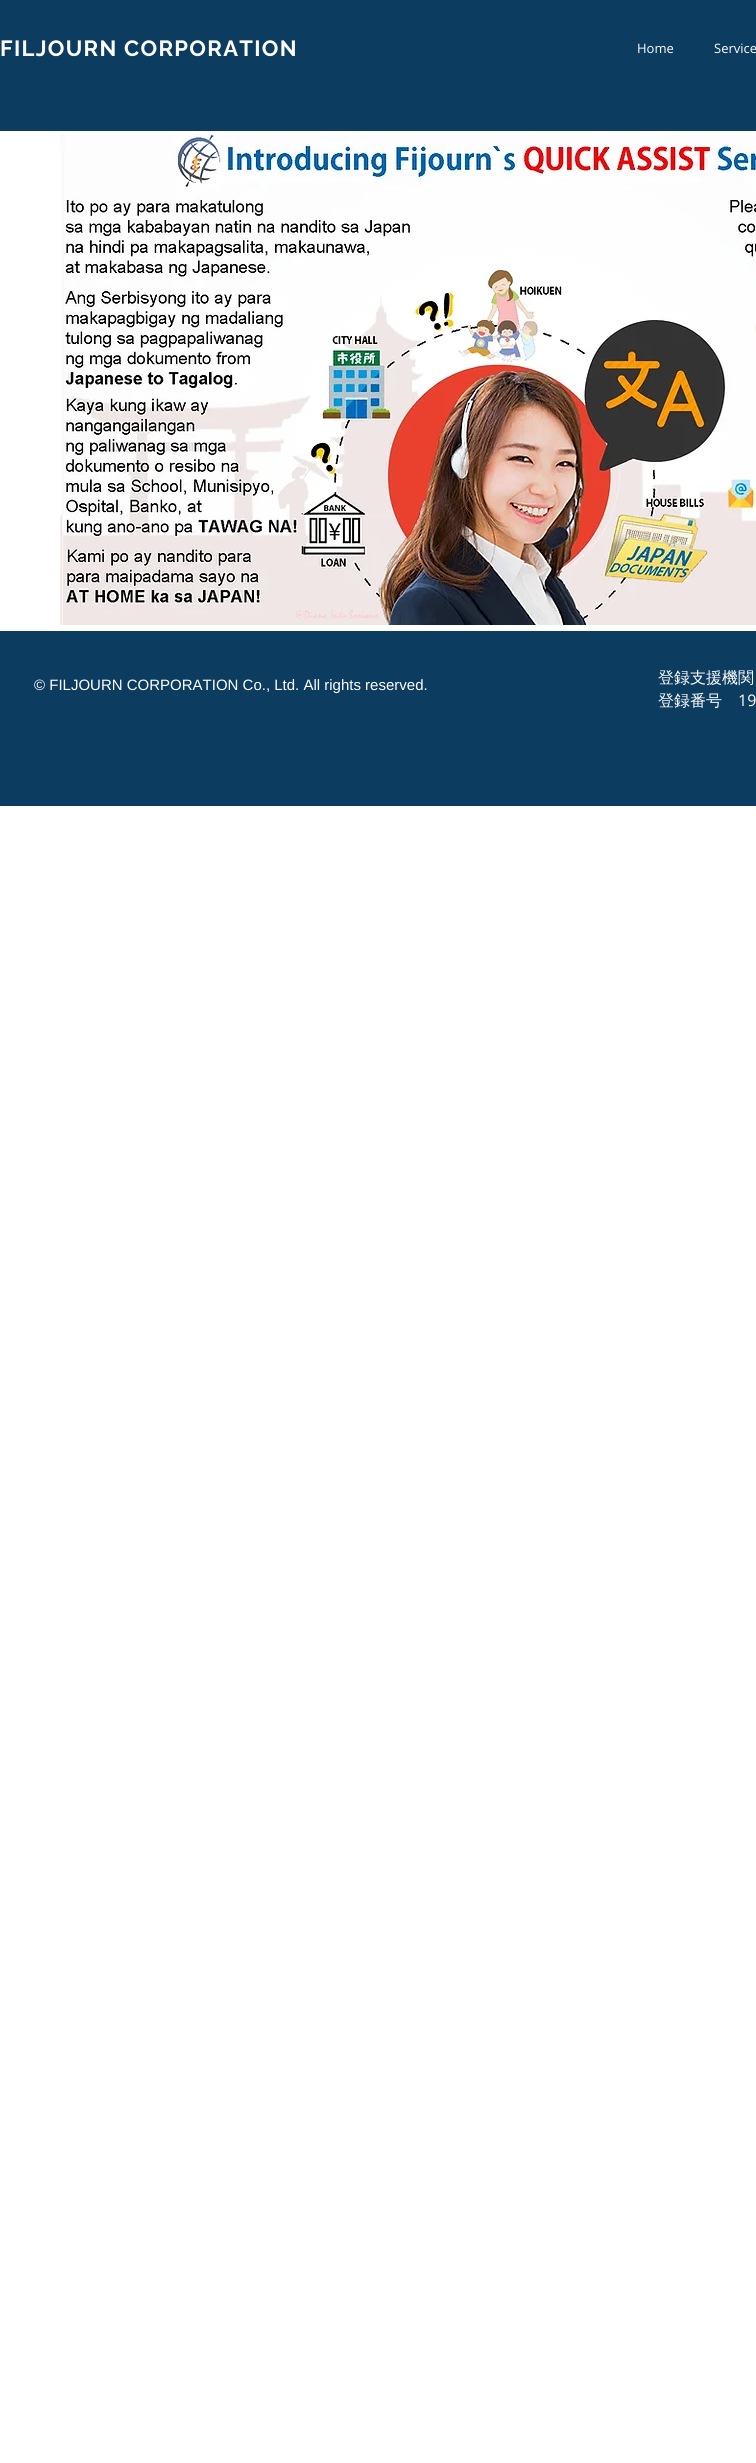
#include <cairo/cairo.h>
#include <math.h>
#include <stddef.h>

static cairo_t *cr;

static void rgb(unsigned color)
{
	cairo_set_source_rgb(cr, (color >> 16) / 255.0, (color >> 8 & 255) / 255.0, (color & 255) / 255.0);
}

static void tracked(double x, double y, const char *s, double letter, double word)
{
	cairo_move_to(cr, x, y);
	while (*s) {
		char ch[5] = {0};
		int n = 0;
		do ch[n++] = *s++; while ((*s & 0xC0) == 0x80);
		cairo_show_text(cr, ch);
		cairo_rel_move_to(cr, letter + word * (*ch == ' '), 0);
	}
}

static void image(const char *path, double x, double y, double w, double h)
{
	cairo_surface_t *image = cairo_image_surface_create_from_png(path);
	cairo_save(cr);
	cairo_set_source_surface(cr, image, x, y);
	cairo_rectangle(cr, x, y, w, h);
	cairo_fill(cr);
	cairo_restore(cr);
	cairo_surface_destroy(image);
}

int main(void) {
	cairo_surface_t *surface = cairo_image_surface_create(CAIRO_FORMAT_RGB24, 756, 2463);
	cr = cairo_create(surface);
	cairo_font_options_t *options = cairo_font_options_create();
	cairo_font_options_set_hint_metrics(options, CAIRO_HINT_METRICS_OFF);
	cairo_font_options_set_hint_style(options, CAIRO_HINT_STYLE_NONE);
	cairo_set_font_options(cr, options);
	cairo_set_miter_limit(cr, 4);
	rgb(0xffffff);
	cairo_paint(cr);
	rgb(0x0c3c60);
	cairo_rectangle(cr, 0, 0, 756, 131);
	cairo_fill(cr);
	image("img/1.png", 60, 134, 696, 491);
	cairo_rectangle(cr, 0, 631, 756, 175);
	cairo_fill(cr);
	cairo_select_font_face(cr, "Raleway", CAIRO_FONT_SLANT_NORMAL, CAIRO_FONT_WEIGHT_BOLD);
	cairo_set_font_size(cr, 22);
	rgb(0xffffff);
	tracked(0, 56, "FILJOURN CORPORATION", 1.3, 0);
	cairo_select_font_face(cr, "Open Sans", CAIRO_FONT_SLANT_NORMAL, CAIRO_FONT_WEIGHT_NORMAL);
	cairo_set_font_size(cr, 13);
	cairo_move_to(cr, 637, 53);
	cairo_show_text(cr, "Home");
	cairo_move_to(cr, 714, 53);
	cairo_show_text(cr, "Service");
	cairo_select_font_face(cr, "Liberation Sans", CAIRO_FONT_SLANT_NORMAL, CAIRO_FONT_WEIGHT_NORMAL);
	cairo_set_font_size(cr, 15);
	cairo_move_to(cr, 34, 690);
	cairo_show_text(cr, "© FILJOURN CORPORATION Co., Ltd. All rights reserved.");
	cairo_select_font_face(cr, "WenQuanYi Zen Hei Medium", CAIRO_FONT_SLANT_NORMAL, CAIRO_FONT_WEIGHT_NORMAL);
	cairo_set_font_size(cr, 16);
	cairo_move_to(cr, 658, 683);
	cairo_show_text(cr, "登録支援機関");
	cairo_move_to(cr, 658, 706);
	cairo_show_text(cr, "登録番号");
	cairo_select_font_face(cr, "Open Sans", CAIRO_FONT_SLANT_NORMAL, CAIRO_FONT_WEIGHT_NORMAL);
	cairo_move_to(cr, 738, 706);
	cairo_show_text(cr, "19");
	cairo_surface_write_to_png(surface, "page.png");
	cairo_font_options_destroy(options);
	cairo_destroy(cr);
	cairo_surface_destroy(surface);
	return 0;
}
